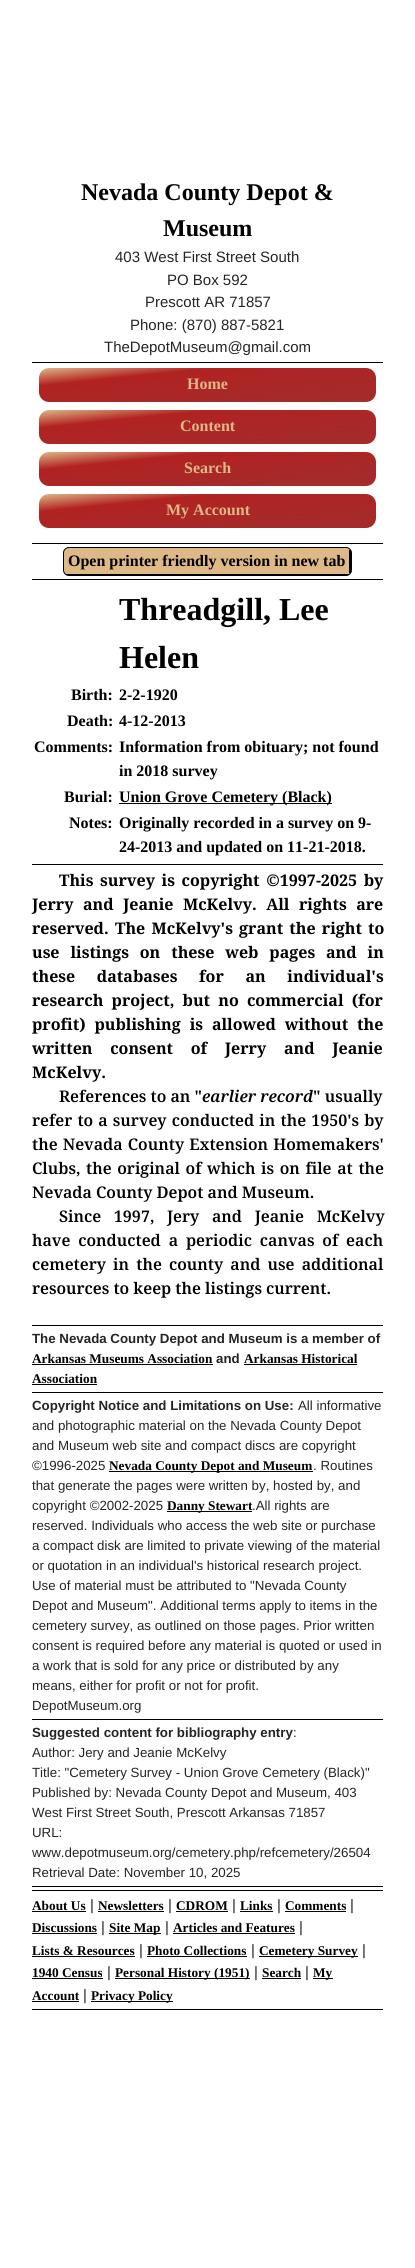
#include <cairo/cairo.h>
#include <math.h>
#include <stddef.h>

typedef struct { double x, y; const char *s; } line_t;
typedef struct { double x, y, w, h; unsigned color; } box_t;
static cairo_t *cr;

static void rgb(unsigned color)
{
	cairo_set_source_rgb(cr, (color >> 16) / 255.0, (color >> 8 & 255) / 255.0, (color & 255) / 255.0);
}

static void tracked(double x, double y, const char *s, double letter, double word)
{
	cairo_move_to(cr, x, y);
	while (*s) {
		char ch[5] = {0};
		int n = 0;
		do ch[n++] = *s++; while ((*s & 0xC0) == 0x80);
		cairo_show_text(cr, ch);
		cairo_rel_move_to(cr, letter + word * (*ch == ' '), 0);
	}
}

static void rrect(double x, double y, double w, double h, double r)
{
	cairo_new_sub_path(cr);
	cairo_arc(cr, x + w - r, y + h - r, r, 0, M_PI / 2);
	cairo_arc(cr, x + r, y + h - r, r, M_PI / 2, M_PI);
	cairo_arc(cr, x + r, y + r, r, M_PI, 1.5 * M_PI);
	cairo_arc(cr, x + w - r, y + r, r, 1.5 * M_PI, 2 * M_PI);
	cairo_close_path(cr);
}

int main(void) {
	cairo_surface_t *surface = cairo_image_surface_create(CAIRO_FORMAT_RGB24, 415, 2268);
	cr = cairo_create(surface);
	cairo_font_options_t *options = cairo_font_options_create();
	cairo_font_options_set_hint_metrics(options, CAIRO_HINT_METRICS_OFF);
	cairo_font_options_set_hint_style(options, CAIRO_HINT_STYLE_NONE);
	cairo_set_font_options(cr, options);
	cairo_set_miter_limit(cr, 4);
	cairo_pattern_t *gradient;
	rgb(0xffffff);
	cairo_paint(cr);
	rgb(0x000000);
	cairo_rectangle(cr, 32, 362, 351, 1);
	cairo_fill(cr);
	gradient = cairo_pattern_create_linear(204, 351, 211, 419);
	cairo_pattern_add_color_stop_rgba(gradient, 0, 0.871, 0.722, 0.529, 1);
	cairo_pattern_add_color_stop_rgba(gradient, 0.26, 0.698, 0.133, 0.133, 1);
	cairo_pattern_add_color_stop_rgba(gradient, 0.82, 0.647, 0.165, 0.165, 1);
	cairo_pattern_add_color_stop_rgba(gradient, 0.99, 0.647, 0.165, 0.165, 1);
	cairo_set_source(cr, gradient);
	cairo_pattern_destroy(gradient);
	rrect(39, 368, 337, 34, 10);
	cairo_fill(cr);
	gradient = cairo_pattern_create_linear(204, 393, 211, 461);
	cairo_pattern_add_color_stop_rgba(gradient, 0, 0.871, 0.722, 0.529, 1);
	cairo_pattern_add_color_stop_rgba(gradient, 0.26, 0.698, 0.133, 0.133, 1);
	cairo_pattern_add_color_stop_rgba(gradient, 0.82, 0.647, 0.165, 0.165, 1);
	cairo_pattern_add_color_stop_rgba(gradient, 0.99, 0.647, 0.165, 0.165, 1);
	cairo_set_source(cr, gradient);
	cairo_pattern_destroy(gradient);
	rrect(39, 410, 337, 34, 10);
	cairo_fill(cr);
	gradient = cairo_pattern_create_linear(204, 435, 211, 503);
	cairo_pattern_add_color_stop_rgba(gradient, 0, 0.871, 0.722, 0.529, 1);
	cairo_pattern_add_color_stop_rgba(gradient, 0.26, 0.698, 0.133, 0.133, 1);
	cairo_pattern_add_color_stop_rgba(gradient, 0.82, 0.647, 0.165, 0.165, 1);
	cairo_pattern_add_color_stop_rgba(gradient, 0.99, 0.647, 0.165, 0.165, 1);
	cairo_set_source(cr, gradient);
	cairo_pattern_destroy(gradient);
	rrect(39, 452, 337, 34, 10);
	cairo_fill(cr);
	gradient = cairo_pattern_create_linear(204, 477, 211, 545);
	cairo_pattern_add_color_stop_rgba(gradient, 0, 0.871, 0.722, 0.529, 1);
	cairo_pattern_add_color_stop_rgba(gradient, 0.26, 0.698, 0.133, 0.133, 1);
	cairo_pattern_add_color_stop_rgba(gradient, 0.82, 0.647, 0.165, 0.165, 1);
	cairo_pattern_add_color_stop_rgba(gradient, 0.99, 0.647, 0.165, 0.165, 1);
	cairo_set_source(cr, gradient);
	cairo_pattern_destroy(gradient);
	rrect(39, 494, 337, 34, 10);
	cairo_fill(cr);
	rgb(0x000000);
	cairo_rectangle(cr, 32, 543, 351, 1);
	cairo_fill(cr);
	rgb(0xdeb887);
	rrect(63.5, 547.5, 288, 28, 5.5);
	cairo_fill_preserve(cr);
	rgb(0x000000);
	cairo_set_line_width(cr, 1);
	cairo_stroke(cr);
	{
		static const box_t items[] = {
			{349, 550, 2, 23, 0x000000},
			{66, 574, 283, 1, 0x000000},
			{32, 579, 351, 1, 0x000000},
			{119, 803, 213, 1, 0x000000},
			{32, 864, 351, 1, 0x000000},
			{32, 1325, 351, 1, 0x000000},
			{32, 1364, 181, 1, 0x000000},
			{244, 1364, 113, 1, 0x000000},
			{32, 1384, 65, 1, 0x000000},
			{32, 1392, 351, 1, 0x000000},
			{109, 1471, 204, 1, 0x000000},
			{167, 1511, 85, 1, 0x000000},
			{32, 1719, 351, 1, 0x000000},
			{32, 1886, 351, 1, 0x000000},
			{32, 1890, 351, 1, 0x000000},
			{32, 1911, 54, 1, 0x000000},
			{98, 1911, 66, 1, 0x000000},
			{176, 1911, 52, 1, 0x000000},
			{240, 1911, 33, 1, 0x000000},
			{285, 1911, 61, 1, 0x000000},
			{32, 1933, 65, 1, 0x000000},
			{109, 1933, 52, 1, 0x000000},
			{173, 1933, 122, 1, 0x000000},
			{32, 1956, 103, 1, 0x000000},
			{147, 1956, 100, 1, 0x000000},
			{259, 1956, 99, 1, 0x000000},
			{32, 1978, 71, 1, 0x000000},
			{115, 1978, 135, 1, 0x000000},
			{262, 1978, 39, 1, 0x000000},
			{313, 1978, 20, 1, 0x000000},
			{32, 2001, 47, 1, 0x000000},
			{91, 2001, 82, 1, 0x000000},
			{32, 2009, 351, 1, 0x000000},
		};
		for (size_t i = 0; i < sizeof items / sizeof *items; i++) {
			rgb(items[i].color);
			cairo_rectangle(cr, items[i].x, items[i].y, items[i].w, items[i].h);
			cairo_fill(cr);
		}
	}
	cairo_select_font_face(cr, "Liberation Serif", CAIRO_FONT_SLANT_NORMAL, CAIRO_FONT_WEIGHT_BOLD);
	cairo_set_font_size(cr, 24);
	cairo_move_to(cr, 81, 200);
	cairo_show_text(cr, "Nevada County Depot &");
	cairo_move_to(cr, 163, 236);
	cairo_show_text(cr, "Museum");
	cairo_select_font_face(cr, "Liberation Sans", CAIRO_FONT_SLANT_NORMAL, CAIRO_FONT_WEIGHT_NORMAL);
	cairo_set_font_size(cr, 15);
	rgb(0x232525);
	{
		static const line_t items[] = {
			{115, 262, "403 West First Street South"},
			{167, 285, "PO Box 592"},
			{145, 307, "Prescott AR 71857"},
			{130, 330, "Phone: (870) 887-5821"},
			{104, 352, "TheDepotMuseum@gmail.com"},
		};
		for (size_t i = 0; i < sizeof items / sizeof *items; i++) {
			cairo_move_to(cr, items[i].x, items[i].y);
			cairo_show_text(cr, items[i].s);
		}
	}
	cairo_select_font_face(cr, "Liberation Serif", CAIRO_FONT_SLANT_NORMAL, CAIRO_FONT_WEIGHT_BOLD);
	cairo_set_font_size(cr, 16);
	rgb(0xdeb887);
	{
		static const line_t items[] = {
			{187, 389, "Home"},
			{180, 431, "Content"},
			{184, 473, "Search"},
			{166, 515, "My Account"},
		};
		for (size_t i = 0; i < sizeof items / sizeof *items; i++) {
			cairo_move_to(cr, items[i].x, items[i].y);
			cairo_show_text(cr, items[i].s);
		}
	}
	rgb(0x000000);
	cairo_move_to(cr, 68, 566);
	cairo_show_text(cr, "Open printer friendly version in new tab");
	cairo_set_font_size(cr, 32);
	cairo_move_to(cr, 119, 620);
	cairo_show_text(cr, "Threadgill, Lee");
	cairo_move_to(cr, 119, 668);
	cairo_show_text(cr, "Helen");
	cairo_set_font_size(cr, 16);
	{
		static const line_t items[] = {
			{71, 700, "Birth:"},
			{119, 700, "2-2-1920"},
			{67, 726, "Death:"},
			{119, 726, "4-12-2013"},
			{34, 752, "Comments:"},
			{119, 752, "Information from obituary; not found"},
			{119, 776, "in 2018 survey"},
			{64, 802, "Burial:"},
			{119, 802, "Union Grove Cemetery (Black)"},
			{69, 828, "Notes:"},
			{119, 828, "Originally recorded in a survey on 9-"},
			{119, 852, "24-2013 and updated on 11-21-2018."},
		};
		for (size_t i = 0; i < sizeof items / sizeof *items; i++) {
			cairo_move_to(cr, items[i].x, items[i].y);
			cairo_show_text(cr, items[i].s);
		}
	}
	cairo_select_font_face(cr, "Noto Serif", CAIRO_FONT_SLANT_NORMAL, CAIRO_FONT_WEIGHT_BOLD);
	tracked(59, 886, "This survey is copyright ©1997-2025 by", 0, 2.5);
	tracked(32, 910, "Jerry and Jeanie McKelvy. All rights are", 0, 5.25);
	cairo_move_to(cr, 32, 934);
	cairo_show_text(cr, "reserved.");
	tracked(115, 934, "The McKelvy's grant the right to", 0, 2);
	tracked(32, 958, "use listings on these web pages and in", 0, 6.75);
	tracked(32, 982, "these databases for an individual's", 0, 17.5);
	tracked(32, 1006, "research project, but no commercial (for", 0, 4);
	tracked(32, 1030, "profit) publishing is allowed without the", 0, 4.75);
	tracked(32, 1054, "written consent of Jerry and Jeanie", 0, 13.5);
	cairo_move_to(cr, 32, 1078);
	cairo_show_text(cr, "McKelvy.");
	cairo_select_font_face(cr, "Noto Serif SemiBold", CAIRO_FONT_SLANT_NORMAL, CAIRO_FONT_WEIGHT_NORMAL);
	cairo_move_to(cr, 59, 1102);
	cairo_show_text(cr, "References to an \"");
	cairo_select_font_face(cr, "Noto Serif SemiBold", CAIRO_FONT_SLANT_ITALIC, CAIRO_FONT_WEIGHT_NORMAL);
	cairo_move_to(cr, 202, 1102);
	cairo_show_text(cr, "earlier record");
	cairo_select_font_face(cr, "Noto Serif SemiBold", CAIRO_FONT_SLANT_NORMAL, CAIRO_FONT_WEIGHT_NORMAL);
	cairo_move_to(cr, 313, 1102);
	cairo_show_text(cr, "\" usually");
	tracked(32, 1126, "refer to a survey conducted in the 1950's by", 0, 1);
	tracked(32, 1150, "the Nevada County Extension Homemakers'", 0, 1);
	tracked(32, 1174, "Clubs, the original of which is on file at the", 0, 1.5);
	cairo_move_to(cr, 32, 1198);
	cairo_show_text(cr, "Nevada County Depot and Museum.");
	tracked(59, 1222, "Since 1997, Jery and Jeanie McKelvy", 0, 8.5);
	tracked(32, 1246, "have conducted a periodic canvas of each", 0, 3.75);
	tracked(32, 1270, "cemetery in the county and use additional", 0, 3);
	cairo_move_to(cr, 32, 1294);
	cairo_show_text(cr, "resources to keep the listings current.");
	cairo_select_font_face(cr, "Liberation Sans", CAIRO_FONT_SLANT_NORMAL, CAIRO_FONT_WEIGHT_BOLD);
	cairo_set_font_size(cr, 13.3);
	rgb(0x232525);
	cairo_move_to(cr, 32, 1343);
	cairo_show_text(cr, "The Nevada County Depot and Museum is a member of");
	cairo_select_font_face(cr, "Liberation Serif", CAIRO_FONT_SLANT_NORMAL, CAIRO_FONT_WEIGHT_BOLD);
	rgb(0x000000);
	cairo_move_to(cr, 32, 1363);
	cairo_show_text(cr, "Arkansas Museums Association");
	cairo_select_font_face(cr, "Liberation Sans", CAIRO_FONT_SLANT_NORMAL, CAIRO_FONT_WEIGHT_BOLD);
	rgb(0x232525);
	cairo_move_to(cr, 216, 1363);
	cairo_show_text(cr, "and");
	cairo_select_font_face(cr, "Liberation Serif", CAIRO_FONT_SLANT_NORMAL, CAIRO_FONT_WEIGHT_BOLD);
	rgb(0x000000);
	cairo_move_to(cr, 244, 1363);
	cairo_show_text(cr, "Arkansas Historical");
	cairo_move_to(cr, 32, 1383);
	cairo_show_text(cr, "Association");
	cairo_select_font_face(cr, "Liberation Sans", CAIRO_FONT_SLANT_NORMAL, CAIRO_FONT_WEIGHT_BOLD);
	rgb(0x232525);
	cairo_move_to(cr, 32, 1410);
	cairo_show_text(cr, "Copyright Notice and Limitations on Use:");
	cairo_select_font_face(cr, "Liberation Sans", CAIRO_FONT_SLANT_NORMAL, CAIRO_FONT_WEIGHT_NORMAL);
	{
		static const line_t items[] = {
			{298, 1410, "All informative"},
			{32, 1430, "and photographic material on the Nevada County Depot"},
			{32, 1450, "and Museum web site and compact discs are copyright"},
			{32, 1470, "©1996-2025"},
		};
		for (size_t i = 0; i < sizeof items / sizeof *items; i++) {
			cairo_move_to(cr, items[i].x, items[i].y);
			cairo_show_text(cr, items[i].s);
		}
	}
	cairo_select_font_face(cr, "Liberation Serif", CAIRO_FONT_SLANT_NORMAL, CAIRO_FONT_WEIGHT_BOLD);
	rgb(0x000000);
	cairo_move_to(cr, 109, 1470);
	cairo_show_text(cr, "Nevada County Depot and Museum");
	cairo_select_font_face(cr, "Liberation Sans", CAIRO_FONT_SLANT_NORMAL, CAIRO_FONT_WEIGHT_NORMAL);
	rgb(0x232525);
	{
		static const line_t items[] = {
			{313, 1470, ". Routines"},
			{32, 1490, "that generate the pages were written by, hosted by, and"},
			{32, 1510, "copyright ©2002-2025"},
		};
		for (size_t i = 0; i < sizeof items / sizeof *items; i++) {
			cairo_move_to(cr, items[i].x, items[i].y);
			cairo_show_text(cr, items[i].s);
		}
	}
	cairo_select_font_face(cr, "Liberation Serif", CAIRO_FONT_SLANT_NORMAL, CAIRO_FONT_WEIGHT_BOLD);
	rgb(0x000000);
	cairo_move_to(cr, 167, 1510);
	cairo_show_text(cr, "Danny Stewart");
	cairo_select_font_face(cr, "Liberation Sans", CAIRO_FONT_SLANT_NORMAL, CAIRO_FONT_WEIGHT_NORMAL);
	rgb(0x232525);
	{
		static const line_t items[] = {
			{252, 1510, ".All rights are"},
			{32, 1530, "reserved. Individuals who access the web site or purchase"},
			{32, 1550, "a compact disk are limited to private viewing of the material"},
			{32, 1570, "or quotation in an individual's historical research project."},
			{32, 1590, "Use of material must be attributed to \"Nevada County"},
			{32, 1610, "Depot and Museum\". Additional terms apply to items in the"},
			{32, 1630, "cemetery survey, as outlined on those pages. Prior written"},
			{32, 1650, "consent is required before any material is quoted or used in"},
			{32, 1670, "a work that is sold for any price or distributed by any"},
			{32, 1690, "means, either for profit or not for profit."},
			{32, 1710, "DepotMuseum.org"},
		};
		for (size_t i = 0; i < sizeof items / sizeof *items; i++) {
			cairo_move_to(cr, items[i].x, items[i].y);
			cairo_show_text(cr, items[i].s);
		}
	}
	cairo_select_font_face(cr, "Liberation Sans", CAIRO_FONT_SLANT_NORMAL, CAIRO_FONT_WEIGHT_BOLD);
	cairo_move_to(cr, 32, 1737);
	cairo_show_text(cr, "Suggested content for bibliography entry");
	cairo_select_font_face(cr, "Liberation Sans", CAIRO_FONT_SLANT_NORMAL, CAIRO_FONT_WEIGHT_NORMAL);
	{
		static const line_t items[] = {
			{293, 1737, ":"},
			{32, 1757, "Author: Jery and Jeanie McKelvy"},
			{32, 1777, "Title: \"Cemetery Survey - Union Grove Cemetery (Black)\""},
			{32, 1797, "Published by: Nevada County Depot and Museum, 403"},
			{32, 1817, "West First Street South, Prescott Arkansas 71857"},
			{32, 1837, "URL:"},
			{32, 1857, "www.depotmuseum.org/cemetery.php/refcemetery/26504"},
			{32, 1877, "Retrieval Date: November 10, 2025"},
		};
		for (size_t i = 0; i < sizeof items / sizeof *items; i++) {
			cairo_move_to(cr, items[i].x, items[i].y);
			cairo_show_text(cr, items[i].s);
		}
	}
	cairo_select_font_face(cr, "Liberation Serif", CAIRO_FONT_SLANT_NORMAL, CAIRO_FONT_WEIGHT_BOLD);
	rgb(0x000000);
	cairo_move_to(cr, 32, 1910);
	cairo_show_text(cr, "About Us");
	cairo_select_font_face(cr, "Liberation Sans", CAIRO_FONT_SLANT_NORMAL, CAIRO_FONT_WEIGHT_NORMAL);
	cairo_set_font_size(cr, 15);
	rgb(0x232525);
	cairo_move_to(cr, 90, 1910);
	cairo_show_text(cr, "|");
	cairo_select_font_face(cr, "Liberation Serif", CAIRO_FONT_SLANT_NORMAL, CAIRO_FONT_WEIGHT_BOLD);
	cairo_set_font_size(cr, 13.3);
	rgb(0x000000);
	cairo_move_to(cr, 98, 1910);
	cairo_show_text(cr, "Newsletters");
	cairo_select_font_face(cr, "Liberation Sans", CAIRO_FONT_SLANT_NORMAL, CAIRO_FONT_WEIGHT_NORMAL);
	cairo_set_font_size(cr, 15);
	rgb(0x232525);
	cairo_move_to(cr, 168, 1910);
	cairo_show_text(cr, "|");
	cairo_select_font_face(cr, "Liberation Serif", CAIRO_FONT_SLANT_NORMAL, CAIRO_FONT_WEIGHT_BOLD);
	cairo_set_font_size(cr, 13.3);
	rgb(0x000000);
	cairo_move_to(cr, 176, 1910);
	cairo_show_text(cr, "CDROM");
	cairo_select_font_face(cr, "Liberation Sans", CAIRO_FONT_SLANT_NORMAL, CAIRO_FONT_WEIGHT_NORMAL);
	cairo_set_font_size(cr, 15);
	rgb(0x232525);
	cairo_move_to(cr, 232, 1910);
	cairo_show_text(cr, "|");
	cairo_select_font_face(cr, "Liberation Serif", CAIRO_FONT_SLANT_NORMAL, CAIRO_FONT_WEIGHT_BOLD);
	cairo_set_font_size(cr, 13.3);
	rgb(0x000000);
	cairo_move_to(cr, 240, 1910);
	cairo_show_text(cr, "Links");
	cairo_select_font_face(cr, "Liberation Sans", CAIRO_FONT_SLANT_NORMAL, CAIRO_FONT_WEIGHT_NORMAL);
	cairo_set_font_size(cr, 15);
	rgb(0x232525);
	cairo_move_to(cr, 277, 1910);
	cairo_show_text(cr, "|");
	cairo_select_font_face(cr, "Liberation Serif", CAIRO_FONT_SLANT_NORMAL, CAIRO_FONT_WEIGHT_BOLD);
	cairo_set_font_size(cr, 13.3);
	rgb(0x000000);
	cairo_move_to(cr, 285, 1910);
	cairo_show_text(cr, "Comments");
	cairo_select_font_face(cr, "Liberation Sans", CAIRO_FONT_SLANT_NORMAL, CAIRO_FONT_WEIGHT_NORMAL);
	cairo_set_font_size(cr, 15);
	rgb(0x232525);
	cairo_move_to(cr, 350, 1910);
	cairo_show_text(cr, "|");
	cairo_select_font_face(cr, "Liberation Serif", CAIRO_FONT_SLANT_NORMAL, CAIRO_FONT_WEIGHT_BOLD);
	cairo_set_font_size(cr, 13.3);
	rgb(0x000000);
	cairo_move_to(cr, 32, 1932);
	cairo_show_text(cr, "Discussions");
	cairo_select_font_face(cr, "Liberation Sans", CAIRO_FONT_SLANT_NORMAL, CAIRO_FONT_WEIGHT_NORMAL);
	cairo_set_font_size(cr, 15);
	rgb(0x232525);
	cairo_move_to(cr, 101, 1932);
	cairo_show_text(cr, "|");
	cairo_select_font_face(cr, "Liberation Serif", CAIRO_FONT_SLANT_NORMAL, CAIRO_FONT_WEIGHT_BOLD);
	cairo_set_font_size(cr, 13.3);
	rgb(0x000000);
	cairo_move_to(cr, 109, 1932);
	cairo_show_text(cr, "Site Map");
	cairo_select_font_face(cr, "Liberation Sans", CAIRO_FONT_SLANT_NORMAL, CAIRO_FONT_WEIGHT_NORMAL);
	cairo_set_font_size(cr, 15);
	rgb(0x232525);
	cairo_move_to(cr, 165, 1932);
	cairo_show_text(cr, "|");
	cairo_select_font_face(cr, "Liberation Serif", CAIRO_FONT_SLANT_NORMAL, CAIRO_FONT_WEIGHT_BOLD);
	cairo_set_font_size(cr, 13.3);
	rgb(0x000000);
	cairo_move_to(cr, 173, 1932);
	cairo_show_text(cr, "Articles and Features");
	cairo_select_font_face(cr, "Liberation Sans", CAIRO_FONT_SLANT_NORMAL, CAIRO_FONT_WEIGHT_NORMAL);
	cairo_set_font_size(cr, 15);
	rgb(0x232525);
	cairo_move_to(cr, 299, 1932);
	cairo_show_text(cr, "|");
	cairo_select_font_face(cr, "Liberation Serif", CAIRO_FONT_SLANT_NORMAL, CAIRO_FONT_WEIGHT_BOLD);
	cairo_set_font_size(cr, 13.3);
	rgb(0x000000);
	cairo_move_to(cr, 32, 1955);
	cairo_show_text(cr, "Lists & Resources");
	cairo_select_font_face(cr, "Liberation Sans", CAIRO_FONT_SLANT_NORMAL, CAIRO_FONT_WEIGHT_NORMAL);
	cairo_set_font_size(cr, 15);
	rgb(0x232525);
	cairo_move_to(cr, 139, 1955);
	cairo_show_text(cr, "|");
	cairo_select_font_face(cr, "Liberation Serif", CAIRO_FONT_SLANT_NORMAL, CAIRO_FONT_WEIGHT_BOLD);
	cairo_set_font_size(cr, 13.3);
	rgb(0x000000);
	cairo_move_to(cr, 147, 1955);
	cairo_show_text(cr, "Photo Collections");
	cairo_select_font_face(cr, "Liberation Sans", CAIRO_FONT_SLANT_NORMAL, CAIRO_FONT_WEIGHT_NORMAL);
	cairo_set_font_size(cr, 15);
	rgb(0x232525);
	cairo_move_to(cr, 251, 1955);
	cairo_show_text(cr, "|");
	cairo_select_font_face(cr, "Liberation Serif", CAIRO_FONT_SLANT_NORMAL, CAIRO_FONT_WEIGHT_BOLD);
	cairo_set_font_size(cr, 13.3);
	rgb(0x000000);
	cairo_move_to(cr, 259, 1955);
	cairo_show_text(cr, "Cemetery Survey");
	cairo_select_font_face(cr, "Liberation Sans", CAIRO_FONT_SLANT_NORMAL, CAIRO_FONT_WEIGHT_NORMAL);
	cairo_set_font_size(cr, 15);
	rgb(0x232525);
	cairo_move_to(cr, 362, 1955);
	cairo_show_text(cr, "|");
	cairo_select_font_face(cr, "Liberation Serif", CAIRO_FONT_SLANT_NORMAL, CAIRO_FONT_WEIGHT_BOLD);
	cairo_set_font_size(cr, 13.3);
	rgb(0x000000);
	cairo_move_to(cr, 32, 1977);
	cairo_show_text(cr, "1940 Census");
	cairo_select_font_face(cr, "Liberation Sans", CAIRO_FONT_SLANT_NORMAL, CAIRO_FONT_WEIGHT_NORMAL);
	cairo_set_font_size(cr, 15);
	rgb(0x232525);
	cairo_move_to(cr, 107, 1977);
	cairo_show_text(cr, "|");
	cairo_select_font_face(cr, "Liberation Serif", CAIRO_FONT_SLANT_NORMAL, CAIRO_FONT_WEIGHT_BOLD);
	cairo_set_font_size(cr, 13.3);
	rgb(0x000000);
	cairo_move_to(cr, 115, 1977);
	cairo_show_text(cr, "Personal History (1951)");
	cairo_select_font_face(cr, "Liberation Sans", CAIRO_FONT_SLANT_NORMAL, CAIRO_FONT_WEIGHT_NORMAL);
	cairo_set_font_size(cr, 15);
	rgb(0x232525);
	cairo_move_to(cr, 254, 1977);
	cairo_show_text(cr, "|");
	cairo_select_font_face(cr, "Liberation Serif", CAIRO_FONT_SLANT_NORMAL, CAIRO_FONT_WEIGHT_BOLD);
	cairo_set_font_size(cr, 13.3);
	rgb(0x000000);
	cairo_move_to(cr, 262, 1977);
	cairo_show_text(cr, "Search");
	cairo_select_font_face(cr, "Liberation Sans", CAIRO_FONT_SLANT_NORMAL, CAIRO_FONT_WEIGHT_NORMAL);
	cairo_set_font_size(cr, 15);
	rgb(0x232525);
	cairo_move_to(cr, 305, 1977);
	cairo_show_text(cr, "|");
	cairo_select_font_face(cr, "Liberation Serif", CAIRO_FONT_SLANT_NORMAL, CAIRO_FONT_WEIGHT_BOLD);
	cairo_set_font_size(cr, 13.3);
	rgb(0x000000);
	cairo_move_to(cr, 313, 1977);
	cairo_show_text(cr, "My");
	cairo_move_to(cr, 32, 2000);
	cairo_show_text(cr, "Account");
	cairo_select_font_face(cr, "Liberation Sans", CAIRO_FONT_SLANT_NORMAL, CAIRO_FONT_WEIGHT_NORMAL);
	cairo_set_font_size(cr, 15);
	rgb(0x232525);
	cairo_move_to(cr, 83, 2000);
	cairo_show_text(cr, "|");
	cairo_select_font_face(cr, "Liberation Serif", CAIRO_FONT_SLANT_NORMAL, CAIRO_FONT_WEIGHT_BOLD);
	cairo_set_font_size(cr, 13.3);
	rgb(0x000000);
	cairo_move_to(cr, 91, 2000);
	cairo_show_text(cr, "Privacy Policy");
	cairo_surface_write_to_png(surface, "page.png");
	cairo_font_options_destroy(options);
	cairo_destroy(cr);
	cairo_surface_destroy(surface);
	return 0;
}
